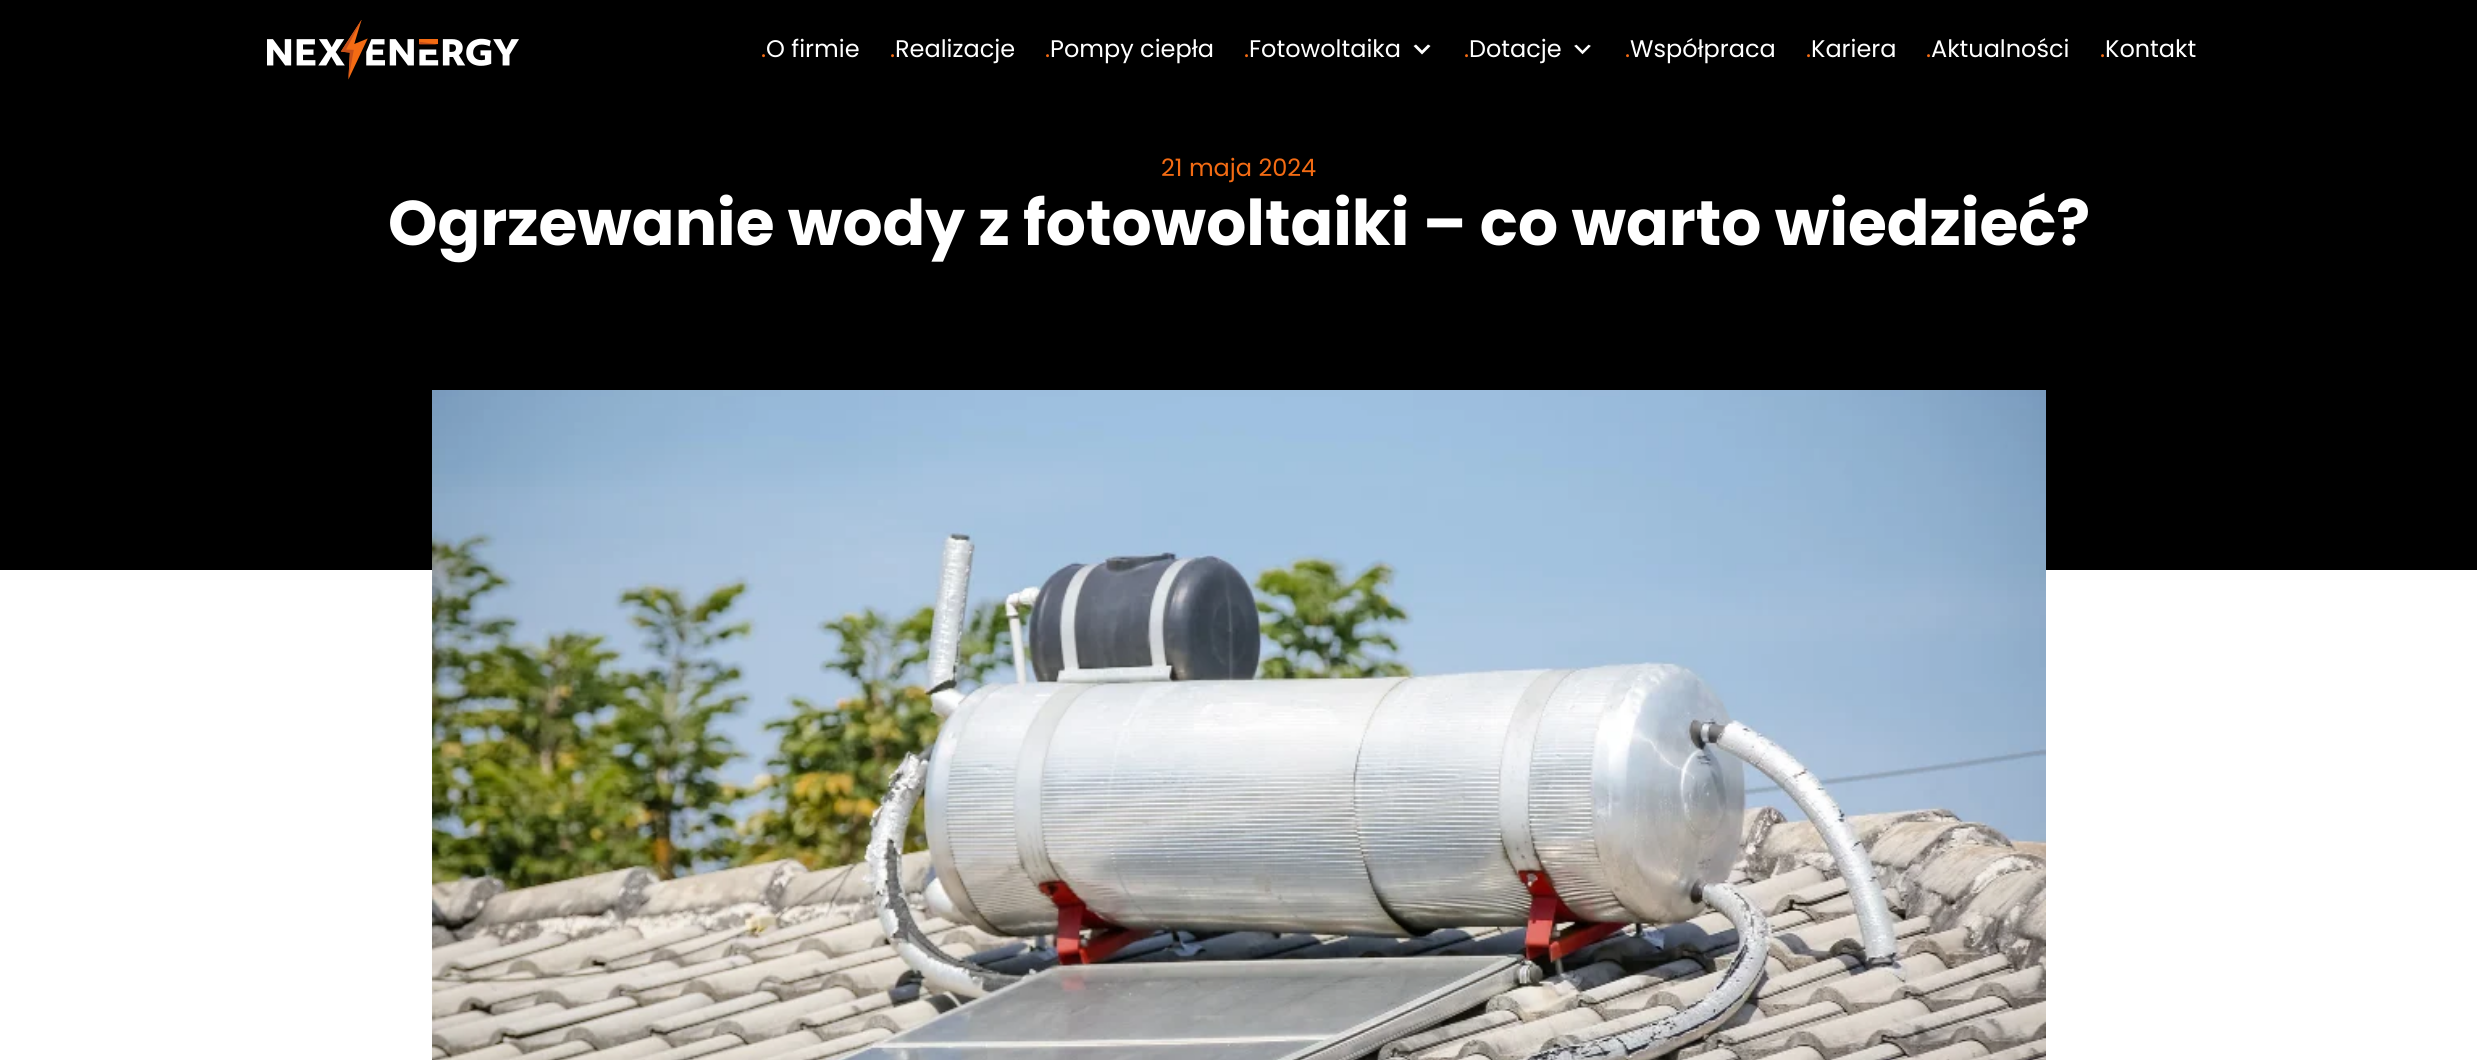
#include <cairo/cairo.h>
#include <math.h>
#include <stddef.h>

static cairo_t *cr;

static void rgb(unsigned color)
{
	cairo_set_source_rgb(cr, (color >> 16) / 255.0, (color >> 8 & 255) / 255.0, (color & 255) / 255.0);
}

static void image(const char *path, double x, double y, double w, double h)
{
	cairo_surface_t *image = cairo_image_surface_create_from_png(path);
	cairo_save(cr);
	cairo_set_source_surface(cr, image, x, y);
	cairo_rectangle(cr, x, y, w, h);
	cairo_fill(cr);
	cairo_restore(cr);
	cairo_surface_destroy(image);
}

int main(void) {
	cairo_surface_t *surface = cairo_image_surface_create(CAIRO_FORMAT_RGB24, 2477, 1060);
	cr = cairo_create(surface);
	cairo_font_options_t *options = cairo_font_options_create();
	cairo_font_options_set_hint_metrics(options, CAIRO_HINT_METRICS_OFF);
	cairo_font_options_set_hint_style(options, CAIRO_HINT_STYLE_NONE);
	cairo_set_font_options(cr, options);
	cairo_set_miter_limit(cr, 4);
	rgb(0xffffff);
	cairo_paint(cr);
	rgb(0x000000);
	cairo_rectangle(cr, 0, 0, 2477, 570);
	cairo_fill(cr);
	image("img/1.png", 267, 20, 252, 60);
	rgb(0xffffff);
	cairo_new_path(cr);
	cairo_move_to(cr, 1416, 44.5);
	cairo_line_to(cr, 1422, 50.5);
	cairo_line_to(cr, 1428, 44.5);
	cairo_line_to(cr, 1430.5, 46);
	cairo_line_to(cr, 1422, 54.5);
	cairo_line_to(cr, 1413.5, 46);
	cairo_close_path(cr);
	cairo_fill(cr);
	image("img/2.png", 1574, 44, 17, 11);
	image("img/3.png", 432, 390, 1614, 670);
	cairo_select_font_face(cr, "Poppins", CAIRO_FONT_SLANT_NORMAL, CAIRO_FONT_WEIGHT_NORMAL);
	cairo_set_font_size(cr, 24);
	rgb(0xf36b13);
	cairo_move_to(cr, 761, 57);
	cairo_show_text(cr, ".");
	rgb(0xffffff);
	cairo_move_to(cr, 766, 57);
	cairo_show_text(cr, "O firmie");
	rgb(0xf36b13);
	cairo_move_to(cr, 890, 57);
	cairo_show_text(cr, ".");
	rgb(0xffffff);
	cairo_move_to(cr, 895, 57);
	cairo_show_text(cr, "Realizacje");
	rgb(0xf36b13);
	cairo_move_to(cr, 1045, 57);
	cairo_show_text(cr, ".");
	rgb(0xffffff);
	cairo_move_to(cr, 1050, 57);
	cairo_show_text(cr, "Pompy ciepła");
	cairo_move_to(cr, 1249, 57);
	cairo_show_text(cr, "Fotowoltaika");
	rgb(0xf36b13);
	cairo_move_to(cr, 1244, 57);
	cairo_show_text(cr, ".");
	rgb(0xffffff);
	cairo_move_to(cr, 1469, 57);
	cairo_show_text(cr, "Dotacje");
	rgb(0xf36b13);
	cairo_move_to(cr, 1464, 57);
	cairo_show_text(cr, ".");
	cairo_move_to(cr, 1625, 57);
	cairo_show_text(cr, ".");
	rgb(0xffffff);
	cairo_move_to(cr, 1630, 57);
	cairo_show_text(cr, "Współpraca");
	rgb(0xf36b13);
	cairo_move_to(cr, 1806, 57);
	cairo_show_text(cr, ".");
	rgb(0xffffff);
	cairo_move_to(cr, 1811, 57);
	cairo_show_text(cr, "Kariera");
	rgb(0xf36b13);
	cairo_move_to(cr, 1926, 57);
	cairo_show_text(cr, ".");
	rgb(0xffffff);
	cairo_move_to(cr, 1931, 57);
	cairo_show_text(cr, "Aktualności");
	rgb(0xf36b13);
	cairo_move_to(cr, 2100, 57);
	cairo_show_text(cr, ".");
	rgb(0xffffff);
	cairo_move_to(cr, 2105, 57);
	cairo_show_text(cr, "Kontakt");
	rgb(0xf36b13);
	cairo_move_to(cr, 1161, 176);
	cairo_show_text(cr, "21 maja 2024");
	cairo_select_font_face(cr, "Poppins", CAIRO_FONT_SLANT_NORMAL, CAIRO_FONT_WEIGHT_BOLD);
	cairo_set_font_size(cr, 63);
	rgb(0xffffff);
	cairo_move_to(cr, 388, 245);
	cairo_show_text(cr, "Ogrzewanie wody z fotowoltaiki – co warto wiedzieć?");
	cairo_surface_write_to_png(surface, "page.png");
	cairo_font_options_destroy(options);
	cairo_destroy(cr);
	cairo_surface_destroy(surface);
	return 0;
}
